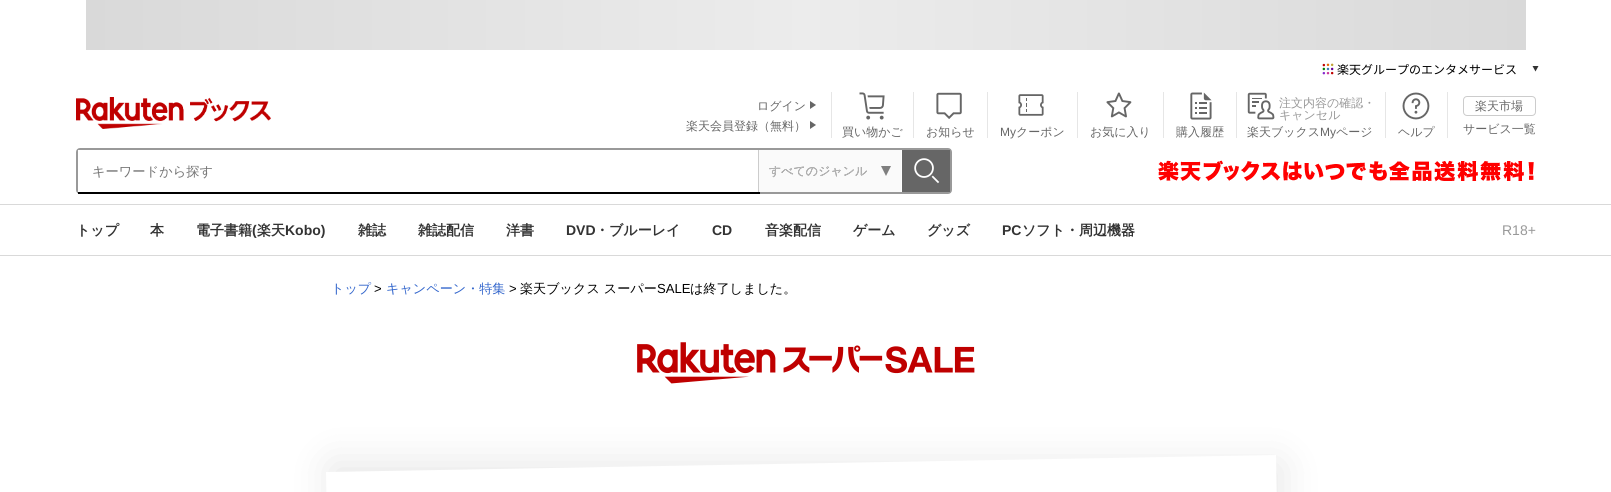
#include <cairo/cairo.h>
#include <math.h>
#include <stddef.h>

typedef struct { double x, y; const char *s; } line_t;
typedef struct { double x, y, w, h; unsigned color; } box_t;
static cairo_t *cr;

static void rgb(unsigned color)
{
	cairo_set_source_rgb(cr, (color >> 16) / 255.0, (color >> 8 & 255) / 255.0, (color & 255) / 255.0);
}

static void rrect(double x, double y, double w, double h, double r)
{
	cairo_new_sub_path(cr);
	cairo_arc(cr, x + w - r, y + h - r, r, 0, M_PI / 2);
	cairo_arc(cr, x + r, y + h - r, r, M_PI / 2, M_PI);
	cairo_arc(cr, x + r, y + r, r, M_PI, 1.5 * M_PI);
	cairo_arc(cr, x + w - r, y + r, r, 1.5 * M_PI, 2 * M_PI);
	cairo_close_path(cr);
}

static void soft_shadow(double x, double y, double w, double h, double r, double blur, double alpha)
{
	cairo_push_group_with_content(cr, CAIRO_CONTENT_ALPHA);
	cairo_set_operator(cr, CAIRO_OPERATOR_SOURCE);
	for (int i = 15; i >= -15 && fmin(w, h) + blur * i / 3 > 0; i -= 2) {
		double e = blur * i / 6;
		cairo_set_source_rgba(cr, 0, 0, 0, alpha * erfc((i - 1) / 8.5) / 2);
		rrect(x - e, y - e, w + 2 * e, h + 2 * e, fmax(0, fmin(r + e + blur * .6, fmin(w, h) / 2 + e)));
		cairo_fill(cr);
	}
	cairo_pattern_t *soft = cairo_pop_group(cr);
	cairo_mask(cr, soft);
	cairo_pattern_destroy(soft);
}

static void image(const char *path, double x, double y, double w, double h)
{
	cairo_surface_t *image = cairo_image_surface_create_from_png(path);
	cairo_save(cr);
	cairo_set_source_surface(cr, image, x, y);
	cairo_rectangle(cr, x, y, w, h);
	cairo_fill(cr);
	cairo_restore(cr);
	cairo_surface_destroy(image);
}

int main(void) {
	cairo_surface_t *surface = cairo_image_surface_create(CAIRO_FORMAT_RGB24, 1611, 492);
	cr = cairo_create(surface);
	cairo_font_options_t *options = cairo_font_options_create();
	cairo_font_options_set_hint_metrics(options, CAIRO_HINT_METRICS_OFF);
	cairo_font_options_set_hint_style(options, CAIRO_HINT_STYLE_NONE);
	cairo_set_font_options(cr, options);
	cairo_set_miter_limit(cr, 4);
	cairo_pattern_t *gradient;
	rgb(0xffffff);
	cairo_paint(cr);
	gradient = cairo_pattern_create_linear(86, 25, 1526, 25);
	cairo_pattern_add_color_stop_rgba(gradient, 0, 0.851, 0.851, 0.851, 1);
	cairo_pattern_add_color_stop_rgba(gradient, 0.5, 0.925, 0.925, 0.925, 1);
	cairo_pattern_add_color_stop_rgba(gradient, 1, 0.851, 0.851, 0.851, 1);
	cairo_set_source(cr, gradient);
	cairo_pattern_destroy(gradient);
	cairo_rectangle(cr, 86, 0, 1440, 50);
	cairo_fill(cr);
	image("img/1.png", 1322, 63, 12, 12);
	rgb(0x333333);
	cairo_new_path(cr);
	cairo_move_to(cr, 1538.5, 66);
	cairo_line_to(cr, 1535.5, 71.5);
	cairo_line_to(cr, 1532.5, 66);
	cairo_close_path(cr);
	cairo_fill(cr);
	rgb(0xd9d9d9);
	cairo_rectangle(cr, 0, 255, 1611, 1);
	cairo_fill(cr);
	image("img/2.png", 76, 97, 195, 32);
	rgb(0x666666);
	cairo_new_path(cr);
	cairo_move_to(cr, 810, 109);
	cairo_line_to(cr, 810, 101);
	cairo_line_to(cr, 816, 105);
	cairo_close_path(cr);
	cairo_fill(cr);
	cairo_new_path(cr);
	cairo_move_to(cr, 810, 129);
	cairo_line_to(cr, 810, 121);
	cairo_line_to(cr, 816, 125);
	cairo_close_path(cr);
	cairo_fill(cr);
	rgb(0xe6e6e6);
	cairo_rectangle(cr, 831, 92, 1, 46);
	cairo_fill(cr);
	image("img/3.png", 859, 92, 26, 28);
	cairo_rectangle(cr, 913, 92, 1, 46);
	cairo_fill(cr);
	image("img/4.png", 936, 92, 26, 27);
	cairo_rectangle(cr, 987, 92, 1, 46);
	cairo_fill(cr);
	image("img/5.png", 1018, 94, 26, 22);
	cairo_rectangle(cr, 1077, 92, 1, 46);
	cairo_fill(cr);
	image("img/6.png", 1106, 92, 26, 26);
	cairo_rectangle(cr, 1163, 92, 1, 46);
	cairo_fill(cr);
	image("img/7.png", 1190, 92, 22, 28);
	cairo_rectangle(cr, 1236, 92, 1, 46);
	cairo_fill(cr);
	image("img/8.png", 1247, 92, 28, 28);
	cairo_rectangle(cr, 1385, 92, 1, 46);
	cairo_fill(cr);
	image("img/9.png", 1402, 92, 28, 28);
	cairo_rectangle(cr, 1447, 92, 1, 46);
	cairo_fill(cr);
	rrect(1463.5, 96.5, 72, 19, 3.5);
	rgb(0xcccccc);
	cairo_set_line_width(cr, 1);
	cairo_stroke(cr);
	rrect(77, 149, 874, 44, 3);
	rgb(0x999999);
	cairo_set_line_width(cr, 2);
	cairo_stroke(cr);
	{
		static const box_t items[] = {
			{78, 150, 2, 42, 0xffffff},
			{78, 192, 682, 2, 0x000000},
			{759, 150, 142, 42, 0xfafafa},
			{758, 150, 1, 42, 0xcccccc},
		};
		for (size_t i = 0; i < sizeof items / sizeof *items; i++) {
			rgb(items[i].color);
			cairo_rectangle(cr, items[i].x, items[i].y, items[i].w, items[i].h);
			cairo_fill(cr);
		}
	}
	rgb(0x7f7f7f);
	cairo_new_path(cr);
	cairo_move_to(cr, 881, 166);
	cairo_line_to(cr, 891, 166);
	cairo_line_to(cr, 886, 176);
	cairo_close_path(cr);
	cairo_fill(cr);
	rgb(0x666666);
	cairo_rectangle(cr, 902, 150, 48, 42);
	cairo_fill(cr);
	image("img/10.png", 914, 158, 26, 26);
	image("img/11.png", 1158, 160, 376, 22);
	rgb(0xd9d9d9);
	cairo_rectangle(cr, 0, 204, 1611, 1);
	cairo_fill(cr);
	image("img/12.png", 637, 342, 338, 42);
	rgb(0x000000);
	soft_shadow(331, 464, 950, 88, 0, 20, 0.1);
	rgb(0xffffff);
	cairo_new_path(cr);
	cairo_move_to(cr, 326, 472);
	cairo_line_to(cr, 1276, 455);
	cairo_line_to(cr, 1285, 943);
	cairo_line_to(cr, 335, 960);
	cairo_close_path(cr);
	cairo_fill(cr);
	cairo_select_font_face(cr, "Noto Sans JP", CAIRO_FONT_SLANT_NORMAL, CAIRO_FONT_WEIGHT_NORMAL);
	cairo_set_font_size(cr, 12);
	rgb(0x000000);
	cairo_move_to(cr, 1337, 74);
	cairo_show_text(cr, "楽天グループのエンタメサービス");
	cairo_select_font_face(cr, "WenQuanYi Zen Hei Medium", CAIRO_FONT_SLANT_NORMAL, CAIRO_FONT_WEIGHT_NORMAL);
	rgb(0x666666);
	{
		static const line_t items[] = {
			{757, 110, "ログイン"},
			{686, 130, "楽天会員登録（無料）"},
			{842, 136, "買い物かご"},
			{926, 136, "お知らせ"},
		};
		for (size_t i = 0; i < sizeof items / sizeof *items; i++) {
			cairo_move_to(cr, items[i].x, items[i].y);
			cairo_show_text(cr, items[i].s);
		}
	}
	cairo_select_font_face(cr, "Liberation Sans", CAIRO_FONT_SLANT_NORMAL, CAIRO_FONT_WEIGHT_NORMAL);
	cairo_move_to(cr, 1000, 136);
	cairo_show_text(cr, "My");
	cairo_select_font_face(cr, "WenQuanYi Zen Hei Medium", CAIRO_FONT_SLANT_NORMAL, CAIRO_FONT_WEIGHT_NORMAL);
	{
		static const line_t items[] = {
			{1016, 136, "クーポン"},
			{1090, 136, "お気に入り"},
			{1176, 136, "購入履歴"},
		};
		for (size_t i = 0; i < sizeof items / sizeof *items; i++) {
			cairo_move_to(cr, items[i].x, items[i].y);
			cairo_show_text(cr, items[i].s);
		}
	}
	rgb(0x999999);
	cairo_move_to(cr, 1279, 107);
	cairo_show_text(cr, "注文内容の確認・");
	cairo_move_to(cr, 1279, 119);
	cairo_show_text(cr, "キャンセル");
	rgb(0x666666);
	cairo_move_to(cr, 1247, 136);
	cairo_show_text(cr, "楽天ブックス");
	cairo_select_font_face(cr, "Liberation Sans", CAIRO_FONT_SLANT_NORMAL, CAIRO_FONT_WEIGHT_NORMAL);
	cairo_move_to(cr, 1320, 136);
	cairo_show_text(cr, "My");
	cairo_select_font_face(cr, "WenQuanYi Zen Hei Medium", CAIRO_FONT_SLANT_NORMAL, CAIRO_FONT_WEIGHT_NORMAL);
	{
		static const line_t items[] = {
			{1336, 136, "ページ"},
			{1398, 136, "ヘルプ"},
			{1475, 110, "楽天市場"},
			{1463, 133, "サービス一覧"},
		};
		for (size_t i = 0; i < sizeof items / sizeof *items; i++) {
			cairo_move_to(cr, items[i].x, items[i].y);
			cairo_show_text(cr, items[i].s);
		}
	}
	cairo_set_font_size(cr, 13.25);
	rgb(0x757575);
	cairo_move_to(cr, 92, 176);
	cairo_show_text(cr, "キーワードから探す");
	cairo_set_font_size(cr, 12);
	rgb(0x666666);
	cairo_move_to(cr, 769, 175);
	cairo_show_text(cr, "すべてのジャンル");
	rgb(0xbcbcbc);
	cairo_move_to(cr, 769, 175);
	cairo_show_text(cr, "すべてのジャンル");
	cairo_select_font_face(cr, "WenQuanYi Zen Hei", CAIRO_FONT_SLANT_NORMAL, CAIRO_FONT_WEIGHT_BOLD);
	cairo_set_font_size(cr, 14);
	rgb(0x333333);
	{
		static const line_t items[] = {
			{76, 235, "トップ"},
			{150, 235, "本"},
			{196, 235, "電子書籍"},
		};
		for (size_t i = 0; i < sizeof items / sizeof *items; i++) {
			cairo_move_to(cr, items[i].x, items[i].y);
			cairo_show_text(cr, items[i].s);
		}
	}
	cairo_select_font_face(cr, "Liberation Sans", CAIRO_FONT_SLANT_NORMAL, CAIRO_FONT_WEIGHT_BOLD);
	cairo_move_to(cr, 252, 235);
	cairo_show_text(cr, "(");
	cairo_select_font_face(cr, "WenQuanYi Zen Hei", CAIRO_FONT_SLANT_NORMAL, CAIRO_FONT_WEIGHT_BOLD);
	cairo_move_to(cr, 257, 235);
	cairo_show_text(cr, "楽天");
	cairo_select_font_face(cr, "Liberation Sans", CAIRO_FONT_SLANT_NORMAL, CAIRO_FONT_WEIGHT_BOLD);
	cairo_move_to(cr, 285, 235);
	cairo_show_text(cr, "Kobo)");
	cairo_select_font_face(cr, "WenQuanYi Zen Hei", CAIRO_FONT_SLANT_NORMAL, CAIRO_FONT_WEIGHT_BOLD);
	{
		static const line_t items[] = {
			{358, 235, "雑誌"},
			{418, 235, "雑誌配信"},
			{506, 235, "洋書"},
		};
		for (size_t i = 0; i < sizeof items / sizeof *items; i++) {
			cairo_move_to(cr, items[i].x, items[i].y);
			cairo_show_text(cr, items[i].s);
		}
	}
	cairo_select_font_face(cr, "Liberation Sans", CAIRO_FONT_SLANT_NORMAL, CAIRO_FONT_WEIGHT_BOLD);
	cairo_move_to(cr, 566, 235);
	cairo_show_text(cr, "DVD");
	cairo_select_font_face(cr, "WenQuanYi Zen Hei", CAIRO_FONT_SLANT_NORMAL, CAIRO_FONT_WEIGHT_BOLD);
	cairo_move_to(cr, 595, 235);
	cairo_show_text(cr, "・ブルーレイ");
	cairo_select_font_face(cr, "Liberation Sans", CAIRO_FONT_SLANT_NORMAL, CAIRO_FONT_WEIGHT_BOLD);
	cairo_move_to(cr, 712, 235);
	cairo_show_text(cr, "CD");
	cairo_select_font_face(cr, "WenQuanYi Zen Hei", CAIRO_FONT_SLANT_NORMAL, CAIRO_FONT_WEIGHT_BOLD);
	{
		static const line_t items[] = {
			{765, 235, "音楽配信"},
			{853, 235, "ゲーム"},
			{927, 235, "グッズ"},
		};
		for (size_t i = 0; i < sizeof items / sizeof *items; i++) {
			cairo_move_to(cr, items[i].x, items[i].y);
			cairo_show_text(cr, items[i].s);
		}
	}
	cairo_select_font_face(cr, "Liberation Sans", CAIRO_FONT_SLANT_NORMAL, CAIRO_FONT_WEIGHT_BOLD);
	cairo_move_to(cr, 1002, 235);
	cairo_show_text(cr, "PC");
	cairo_select_font_face(cr, "WenQuanYi Zen Hei", CAIRO_FONT_SLANT_NORMAL, CAIRO_FONT_WEIGHT_BOLD);
	cairo_move_to(cr, 1022, 235);
	cairo_show_text(cr, "ソフト・周辺機器");
	cairo_select_font_face(cr, "Liberation Sans", CAIRO_FONT_SLANT_NORMAL, CAIRO_FONT_WEIGHT_NORMAL);
	rgb(0x999999);
	cairo_move_to(cr, 1502, 235);
	cairo_show_text(cr, "R18+");
	cairo_select_font_face(cr, "WenQuanYi Zen Hei Medium", CAIRO_FONT_SLANT_NORMAL, CAIRO_FONT_WEIGHT_NORMAL);
	cairo_set_font_size(cr, 13.1);
	rgb(0x3366cc);
	cairo_move_to(cr, 331, 293);
	cairo_show_text(cr, "トップ");
	cairo_select_font_face(cr, "Liberation Sans", CAIRO_FONT_SLANT_NORMAL, CAIRO_FONT_WEIGHT_NORMAL);
	rgb(0x000000);
	cairo_move_to(cr, 374, 293);
	cairo_show_text(cr, ">");
	cairo_select_font_face(cr, "WenQuanYi Zen Hei Medium", CAIRO_FONT_SLANT_NORMAL, CAIRO_FONT_WEIGHT_NORMAL);
	rgb(0x3366cc);
	cairo_move_to(cr, 386, 293);
	cairo_show_text(cr, "キャンペーン・特集");
	cairo_select_font_face(cr, "Liberation Sans", CAIRO_FONT_SLANT_NORMAL, CAIRO_FONT_WEIGHT_NORMAL);
	rgb(0x000000);
	cairo_move_to(cr, 509, 293);
	cairo_show_text(cr, ">");
	cairo_select_font_face(cr, "WenQuanYi Zen Hei Medium", CAIRO_FONT_SLANT_NORMAL, CAIRO_FONT_WEIGHT_NORMAL);
	cairo_move_to(cr, 520, 293);
	cairo_show_text(cr, "楽天ブックス スーパー");
	cairo_select_font_face(cr, "Liberation Sans", CAIRO_FONT_SLANT_NORMAL, CAIRO_FONT_WEIGHT_NORMAL);
	cairo_move_to(cr, 657, 293);
	cairo_show_text(cr, "SALE");
	cairo_select_font_face(cr, "WenQuanYi Zen Hei Medium", CAIRO_FONT_SLANT_NORMAL, CAIRO_FONT_WEIGHT_NORMAL);
	cairo_move_to(cr, 690, 293);
	cairo_show_text(cr, "は終了しました。");
	cairo_surface_write_to_png(surface, "page.png");
	cairo_font_options_destroy(options);
	cairo_destroy(cr);
	cairo_surface_destroy(surface);
	return 0;
}
